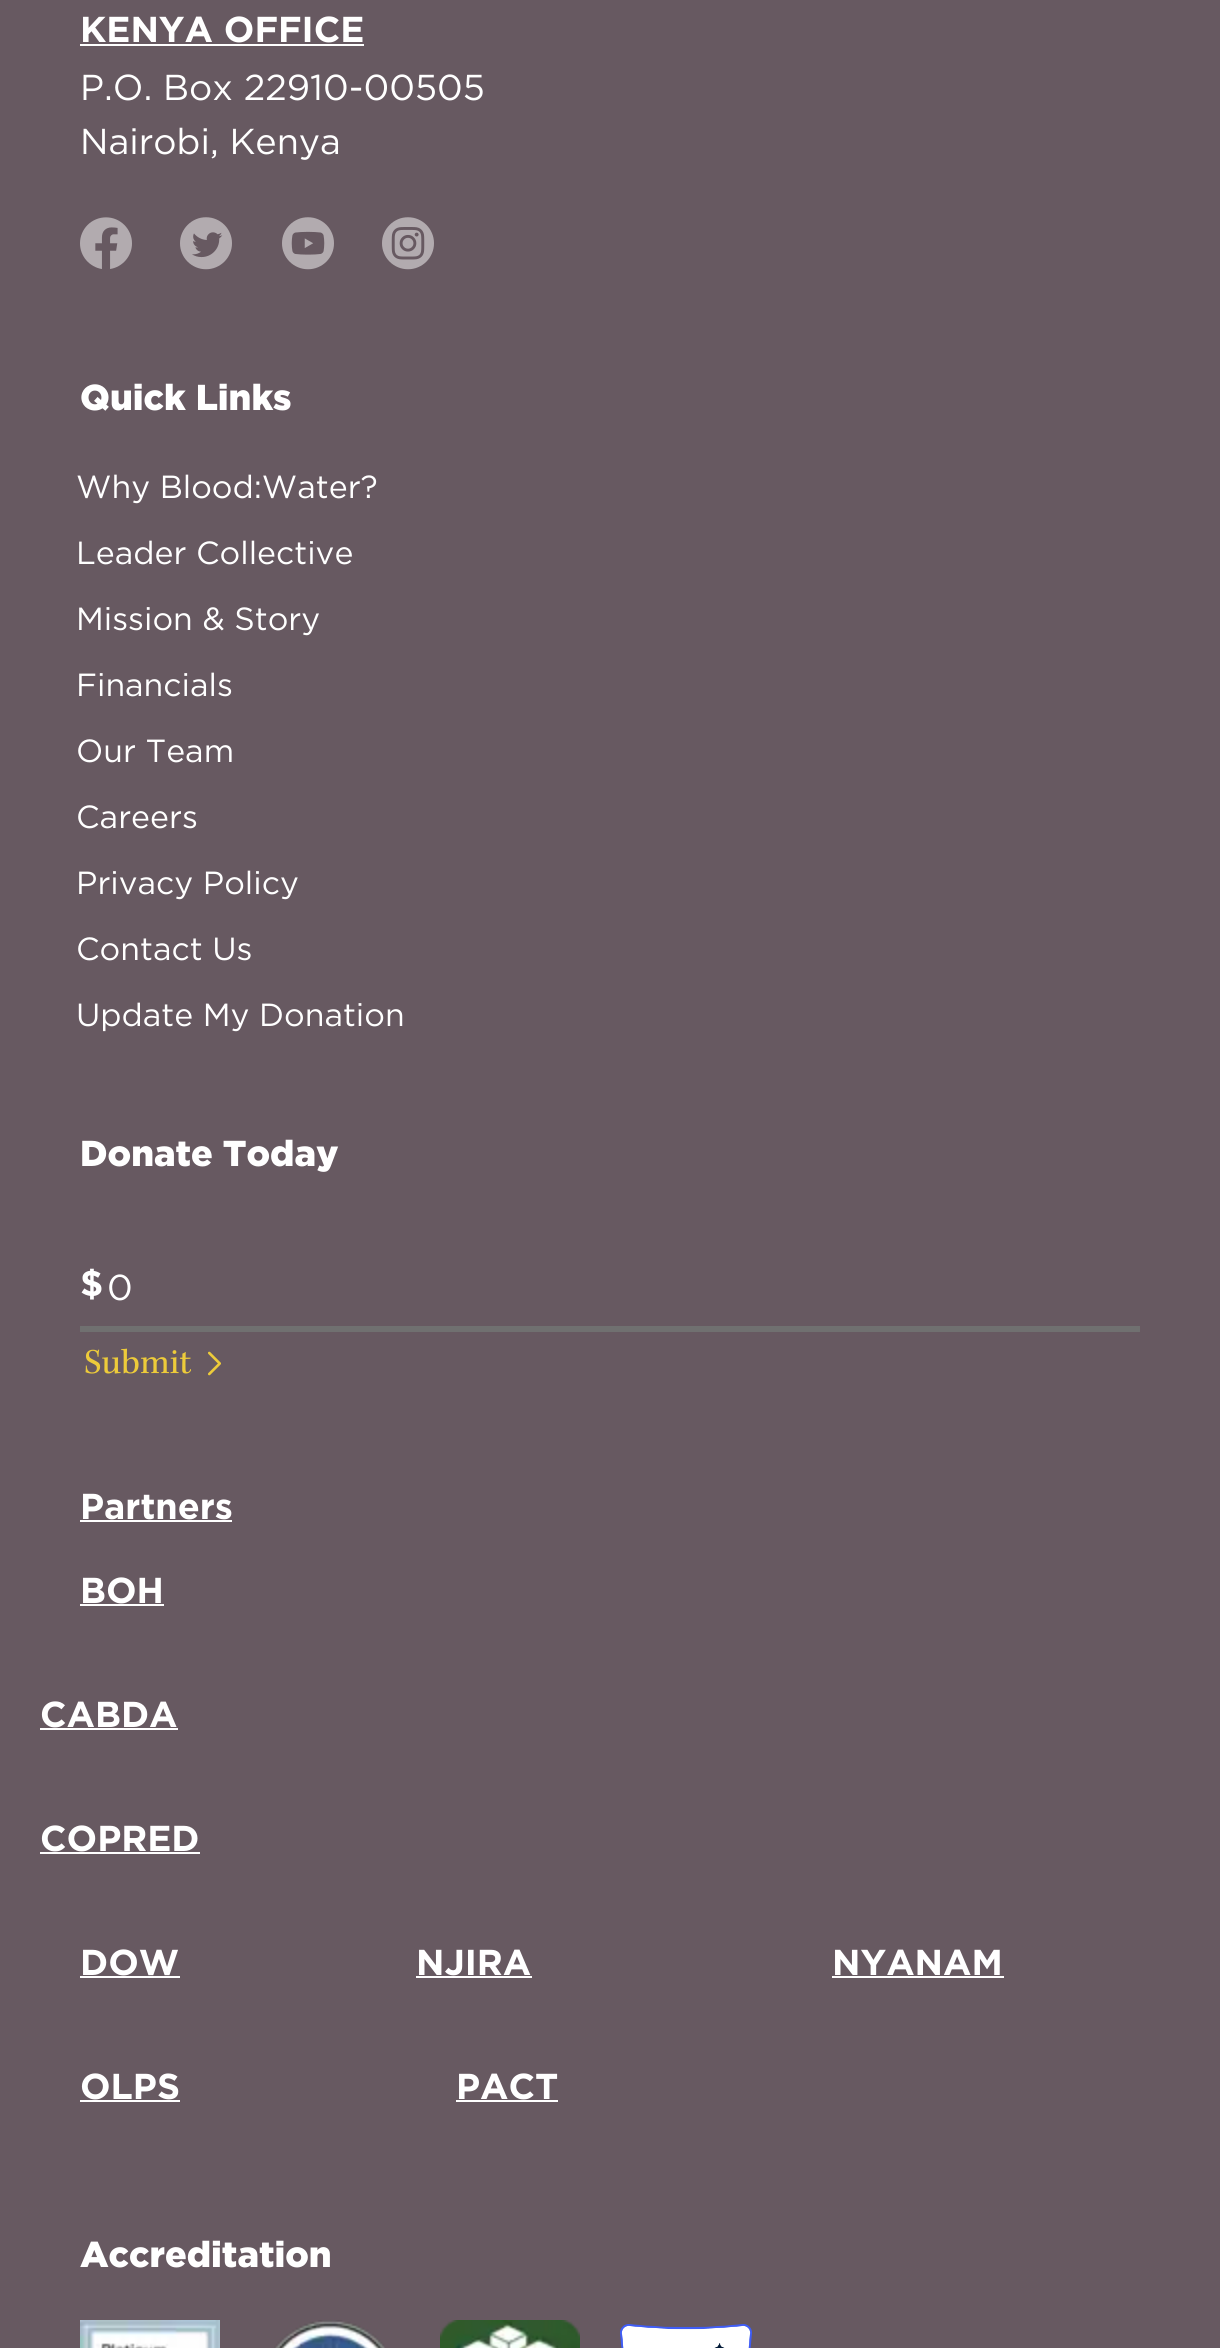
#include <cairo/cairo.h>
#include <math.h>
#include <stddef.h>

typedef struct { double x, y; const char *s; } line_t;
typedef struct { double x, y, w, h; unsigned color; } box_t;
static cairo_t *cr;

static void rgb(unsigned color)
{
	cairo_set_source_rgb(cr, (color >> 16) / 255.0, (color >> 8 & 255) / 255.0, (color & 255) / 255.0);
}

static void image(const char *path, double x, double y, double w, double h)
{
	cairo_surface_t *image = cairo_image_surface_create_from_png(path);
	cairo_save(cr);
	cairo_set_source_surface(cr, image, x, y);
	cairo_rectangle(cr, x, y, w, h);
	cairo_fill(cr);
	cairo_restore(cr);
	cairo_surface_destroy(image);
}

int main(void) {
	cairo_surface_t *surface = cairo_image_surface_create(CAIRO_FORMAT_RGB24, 1220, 2348);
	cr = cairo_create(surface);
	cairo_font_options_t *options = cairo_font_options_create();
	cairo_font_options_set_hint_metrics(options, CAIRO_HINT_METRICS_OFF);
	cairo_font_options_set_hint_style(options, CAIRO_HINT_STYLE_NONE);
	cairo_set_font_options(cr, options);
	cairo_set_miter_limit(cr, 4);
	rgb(0x675961);
	cairo_paint(cr);
	rgb(0xffffff);
	cairo_rectangle(cr, 80, 44, 284, 2);
	cairo_fill(cr);
	image("img/1.png", 80, 217, 52, 52);
	image("img/2.png", 180, 217, 52, 53);
	image("img/3.png", 282, 217, 52, 53);
	image("img/4.png", 382, 217, 52, 53);
	rgb(0x707070);
	cairo_rectangle(cr, 80, 1326, 1060, 6);
	cairo_fill(cr);
	image("img/5.png", 208, 1351, 13, 25);
	{
		static const box_t items[] = {
			{80, 1520, 152, 2, 0xffffff},
			{80, 1604, 84, 2, 0xffffff},
			{40, 1728, 138, 2, 0xffffff},
			{40, 1852, 160, 2, 0xffffff},
			{80, 1976, 100, 2, 0xffffff},
			{416, 1976, 116, 2, 0xffffff},
			{832, 1976, 172, 2, 0xffffff},
			{80, 2100, 100, 2, 0xffffff},
			{456, 2100, 102, 2, 0xffffff},
		};
		for (size_t i = 0; i < sizeof items / sizeof *items; i++) {
			rgb(items[i].color);
			cairo_rectangle(cr, items[i].x, items[i].y, items[i].w, items[i].h);
			cairo_fill(cr);
		}
	}
	image("img/6.png", 80, 2320, 140, 28);
	image("img/7.png", 274, 2320, 111, 28);
	image("img/8.png", 440, 2320, 140, 28);
	image("img/9.png", 620, 2324, 132, 24);
	cairo_select_font_face(cr, "Gotham", CAIRO_FONT_SLANT_NORMAL, CAIRO_FONT_WEIGHT_BOLD);
	cairo_set_font_size(cr, 36);
	cairo_move_to(cr, 80, 42);
	cairo_show_text(cr, "KENYA OFFICE");
	cairo_select_font_face(cr, "Gotham", CAIRO_FONT_SLANT_NORMAL, CAIRO_FONT_WEIGHT_NORMAL);
	cairo_move_to(cr, 80, 100);
	cairo_show_text(cr, "P.O. Box 22910-00505");
	cairo_move_to(cr, 80, 154);
	cairo_show_text(cr, "Nairobi, Kenya");
	cairo_select_font_face(cr, "Gotham Black", CAIRO_FONT_SLANT_NORMAL, CAIRO_FONT_WEIGHT_NORMAL);
	cairo_move_to(cr, 80, 410);
	cairo_show_text(cr, "Quick Links");
	cairo_select_font_face(cr, "Gotham", CAIRO_FONT_SLANT_NORMAL, CAIRO_FONT_WEIGHT_NORMAL);
	cairo_set_font_size(cr, 32);
	{
		static const line_t items[] = {
			{76, 498, "Why Blood:Water?"},
			{76, 564, "Leader Collective"},
			{76, 630, "Mission & Story"},
			{76, 696, "Financials"},
			{76, 762, "Our Team"},
			{76, 828, "Careers"},
			{76, 894, "Privacy Policy"},
			{76, 960, "Contact Us"},
			{76, 1026, "Update My Donation"},
		};
		for (size_t i = 0; i < sizeof items / sizeof *items; i++) {
			cairo_move_to(cr, items[i].x, items[i].y);
			cairo_show_text(cr, items[i].s);
		}
	}
	cairo_select_font_face(cr, "Gotham Black", CAIRO_FONT_SLANT_NORMAL, CAIRO_FONT_WEIGHT_NORMAL);
	cairo_set_font_size(cr, 36);
	cairo_move_to(cr, 80, 1166);
	cairo_show_text(cr, "Donate Today");
	cairo_select_font_face(cr, "Gotham", CAIRO_FONT_SLANT_NORMAL, CAIRO_FONT_WEIGHT_BOLD);
	cairo_move_to(cr, 80, 1296);
	cairo_show_text(cr, "$");
	cairo_select_font_face(cr, "Gotham", CAIRO_FONT_SLANT_NORMAL, CAIRO_FONT_WEIGHT_NORMAL);
	cairo_move_to(cr, 107, 1300);
	cairo_show_text(cr, "0");
	cairo_select_font_face(cr, "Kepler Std", CAIRO_FONT_SLANT_NORMAL, CAIRO_FONT_WEIGHT_NORMAL);
	rgb(0xedcb3a);
	cairo_move_to(cr, 84, 1373);
	cairo_show_text(cr, "Submit");
	cairo_select_font_face(cr, "Gotham", CAIRO_FONT_SLANT_NORMAL, CAIRO_FONT_WEIGHT_BOLD);
	rgb(0xffffff);
	{
		static const line_t items[] = {
			{80, 1519, "Partners"},
			{80, 1603, "BOH"},
			{40, 1727, "CABDA"},
			{40, 1851, "COPRED"},
			{80, 1975, "DOW"},
			{416, 1975, "NJIRA"},
			{832, 1975, "NYANAM"},
			{80, 2099, "OLPS"},
			{456, 2099, "PACT"},
		};
		for (size_t i = 0; i < sizeof items / sizeof *items; i++) {
			cairo_move_to(cr, items[i].x, items[i].y);
			cairo_show_text(cr, items[i].s);
		}
	}
	cairo_select_font_face(cr, "Gotham Black", CAIRO_FONT_SLANT_NORMAL, CAIRO_FONT_WEIGHT_NORMAL);
	cairo_move_to(cr, 80, 2267);
	cairo_show_text(cr, "Accreditation");
	cairo_surface_write_to_png(surface, "page.png");
	cairo_font_options_destroy(options);
	cairo_destroy(cr);
	cairo_surface_destroy(surface);
	return 0;
}
